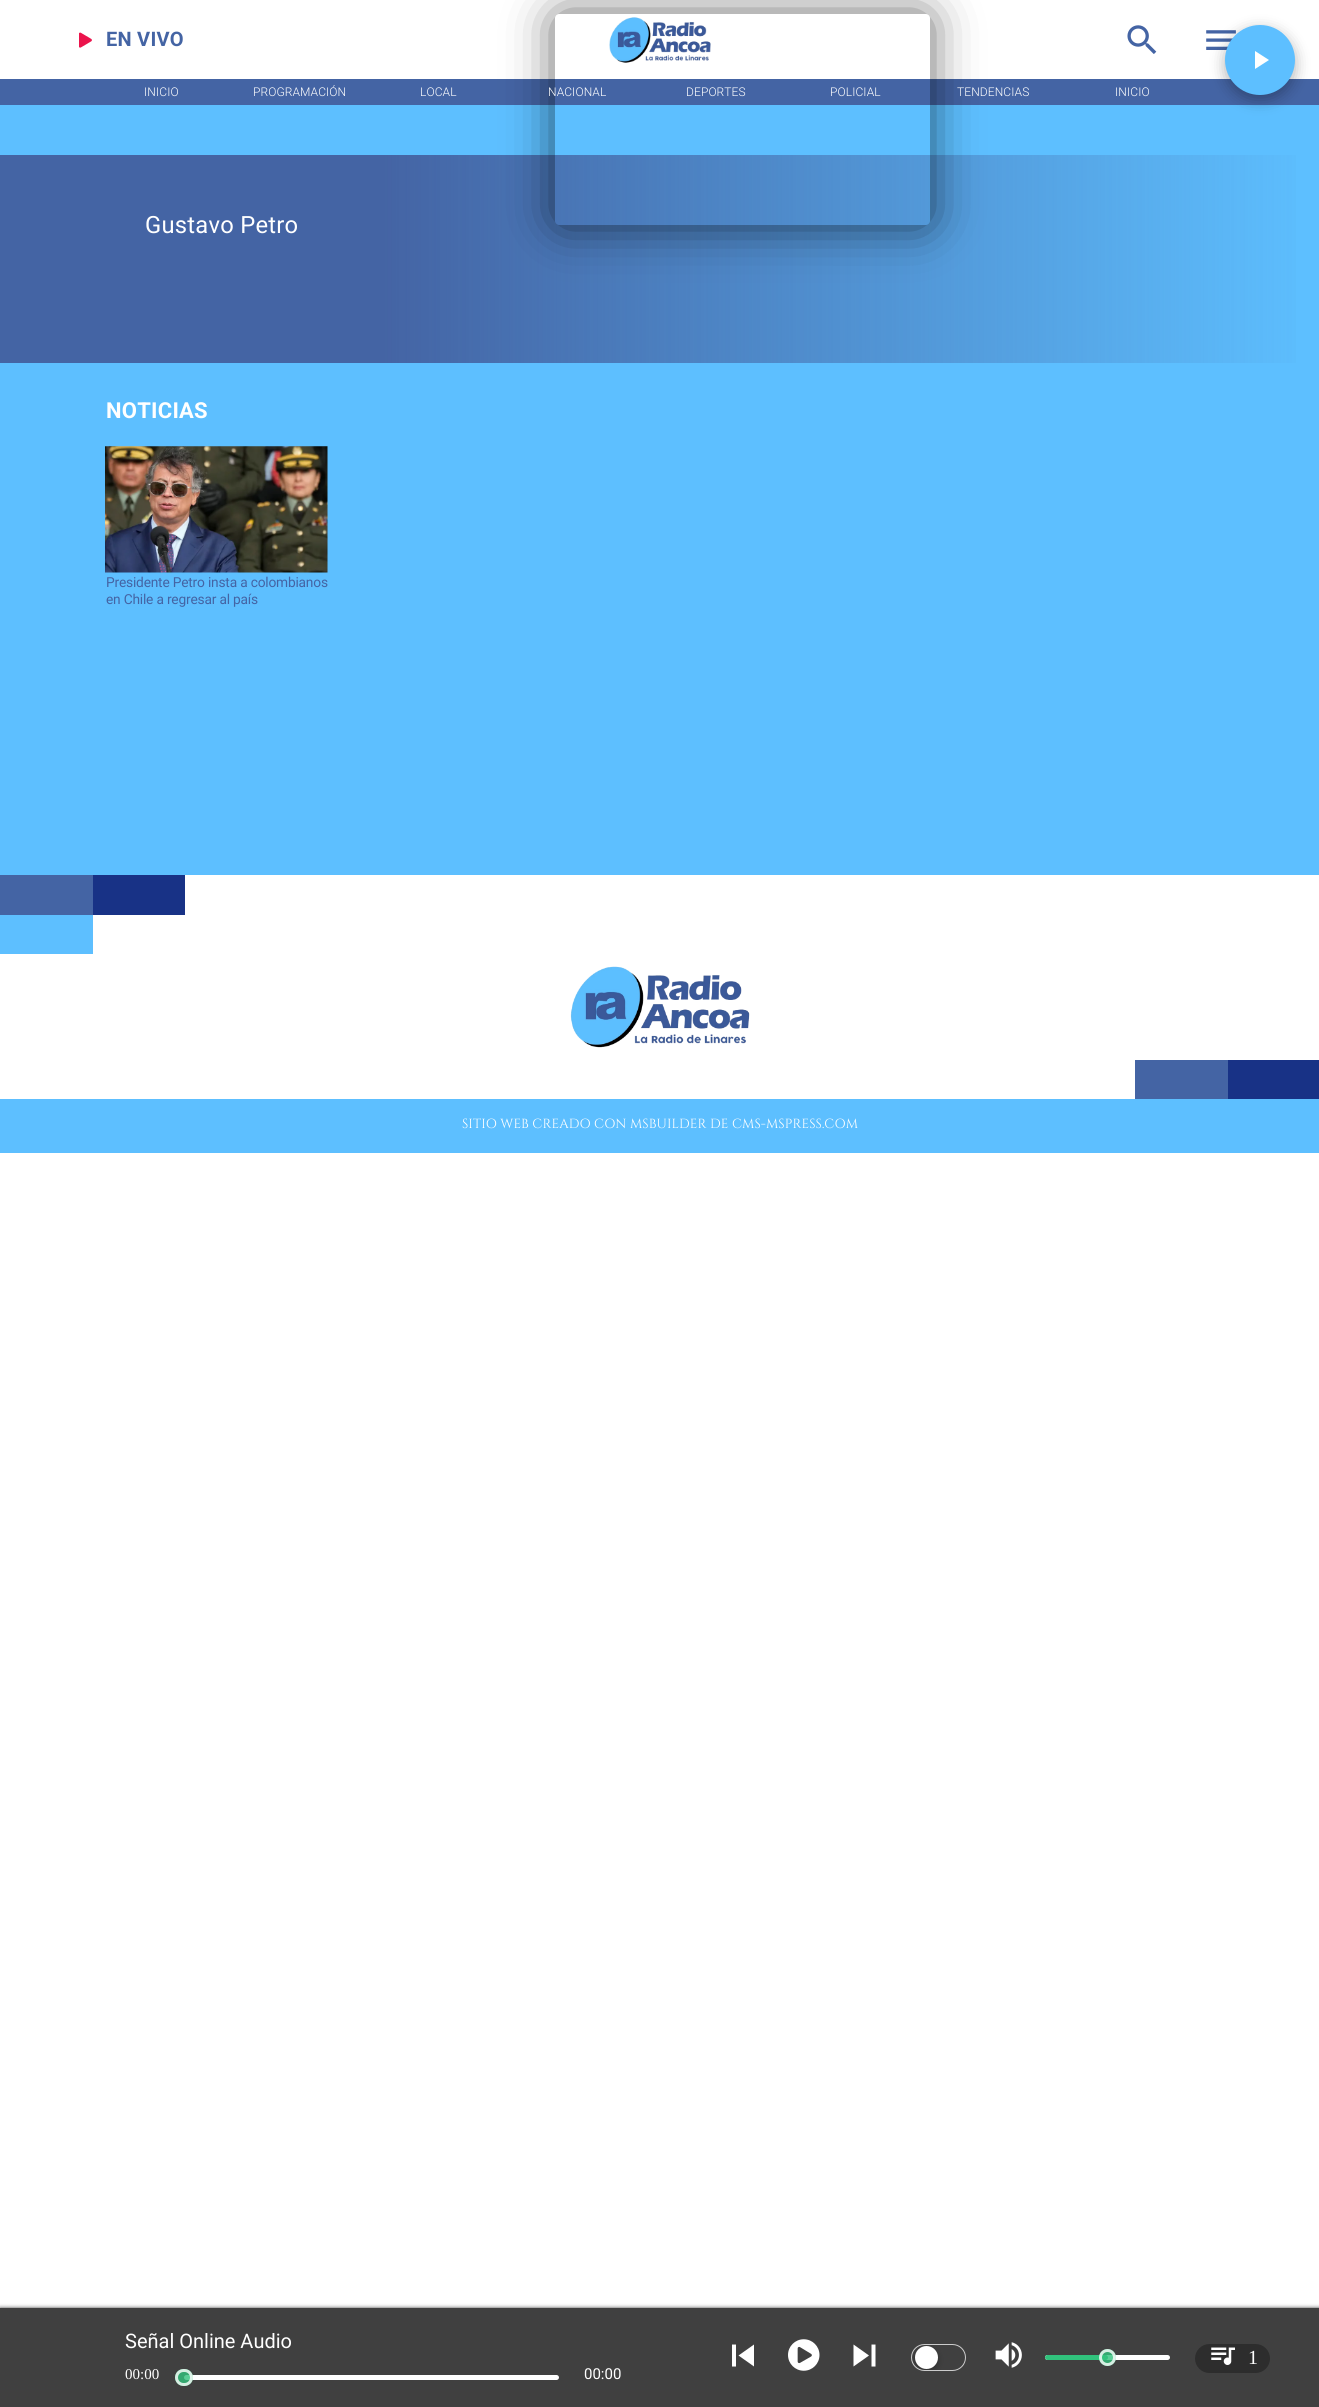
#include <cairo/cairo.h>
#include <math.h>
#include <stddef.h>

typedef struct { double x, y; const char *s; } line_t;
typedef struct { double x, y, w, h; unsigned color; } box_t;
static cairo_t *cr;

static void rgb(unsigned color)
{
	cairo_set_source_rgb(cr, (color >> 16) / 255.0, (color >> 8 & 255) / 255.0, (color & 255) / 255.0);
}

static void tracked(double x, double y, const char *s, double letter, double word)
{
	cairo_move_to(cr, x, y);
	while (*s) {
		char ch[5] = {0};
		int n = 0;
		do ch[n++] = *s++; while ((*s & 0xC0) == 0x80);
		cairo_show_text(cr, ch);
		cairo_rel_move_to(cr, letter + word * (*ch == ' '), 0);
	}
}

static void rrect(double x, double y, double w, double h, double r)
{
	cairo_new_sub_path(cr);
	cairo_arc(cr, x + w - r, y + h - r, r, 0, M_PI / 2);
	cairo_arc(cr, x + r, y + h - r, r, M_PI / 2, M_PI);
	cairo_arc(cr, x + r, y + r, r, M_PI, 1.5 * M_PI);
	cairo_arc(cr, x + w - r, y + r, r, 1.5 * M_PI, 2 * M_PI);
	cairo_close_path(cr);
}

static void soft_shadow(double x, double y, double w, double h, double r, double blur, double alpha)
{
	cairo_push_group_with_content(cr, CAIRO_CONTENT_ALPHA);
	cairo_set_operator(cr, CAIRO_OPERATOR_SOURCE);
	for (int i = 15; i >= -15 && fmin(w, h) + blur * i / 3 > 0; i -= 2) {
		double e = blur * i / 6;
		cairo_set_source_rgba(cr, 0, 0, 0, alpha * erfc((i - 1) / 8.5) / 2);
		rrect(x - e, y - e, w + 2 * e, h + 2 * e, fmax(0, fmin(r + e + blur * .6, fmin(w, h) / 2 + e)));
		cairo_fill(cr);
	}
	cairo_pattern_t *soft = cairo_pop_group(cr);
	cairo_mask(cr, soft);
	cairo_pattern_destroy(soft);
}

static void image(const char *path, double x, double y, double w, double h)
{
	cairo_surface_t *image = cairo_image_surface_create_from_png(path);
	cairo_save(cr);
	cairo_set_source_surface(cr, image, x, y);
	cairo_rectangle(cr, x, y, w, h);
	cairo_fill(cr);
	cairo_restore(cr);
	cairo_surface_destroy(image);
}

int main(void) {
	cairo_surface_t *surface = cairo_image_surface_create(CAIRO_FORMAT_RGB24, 1319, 2407);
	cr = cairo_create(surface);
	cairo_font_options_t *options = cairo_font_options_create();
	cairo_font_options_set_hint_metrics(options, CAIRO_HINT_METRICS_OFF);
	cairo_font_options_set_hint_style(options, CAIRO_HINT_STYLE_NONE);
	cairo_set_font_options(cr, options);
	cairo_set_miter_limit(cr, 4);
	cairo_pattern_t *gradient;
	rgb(0xffffff);
	cairo_paint(cr);
	rgb(0x5dbfff);
	cairo_rectangle(cr, 0, 105, 1319, 1048);
	cairo_fill(cr);
	image("img/2.png", 609, 17, 102, 46);
	rgb(0x4464a4);
	cairo_rectangle(cr, 0, 79, 1319, 26);
	cairo_fill(cr);
	gradient = cairo_pattern_create_linear(0, 259, 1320, 259);
	cairo_pattern_add_color_stop_rgba(gradient, 0.29, 0.267, 0.392, 0.643, 1);
	cairo_pattern_add_color_stop_rgba(gradient, 1, 0.267, 0.392, 0.643, 0);
	cairo_set_source(cr, gradient);
	cairo_pattern_destroy(gradient);
	cairo_rectangle(cr, 0, 155, 1296, 208);
	cairo_fill(cr);
	cairo_save(cr);
	cairo_set_fill_rule(cr, CAIRO_FILL_RULE_EVEN_ODD);
	cairo_new_path(cr);
	cairo_move_to(cr, 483, 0);
	cairo_line_to(cr, 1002, 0);
	cairo_line_to(cr, 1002, 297);
	cairo_line_to(cr, 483, 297);
	cairo_close_path(cr);
	cairo_move_to(cr, 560, 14);
	cairo_line_to(cr, 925, 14);
	cairo_curve_to(cr, 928, 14, 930, 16, 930, 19);
	cairo_line_to(cr, 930, 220);
	cairo_curve_to(cr, 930, 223, 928, 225, 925, 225);
	cairo_line_to(cr, 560, 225);
	cairo_curve_to(cr, 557, 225, 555, 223, 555, 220);
	cairo_line_to(cr, 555, 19);
	cairo_curve_to(cr, 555, 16, 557, 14, 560, 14);
	cairo_close_path(cr);
	cairo_clip(cr);
	rgb(0x000000);
	soft_shadow(561, 20, 363, 199, 0, 25.5, 0.75);
	cairo_restore(cr);
	image("img/1.png", 79, 32, 13, 16);
	image("img/3.png", 1127, 25, 30, 29);
	image("img/4.png", 1206, 30, 30, 20);
	image("img/5.png", 105, 446, 223, 127);
	{
		static const box_t items[] = {
			{0, 875, 1319, 224, 0xffffff},
			{0, 875, 93, 40, 0x4464a4},
			{93, 875, 92, 40, 0x183286},
			{0, 915, 93, 39, 0x5dbfff},
		};
		for (size_t i = 0; i < sizeof items / sizeof *items; i++) {
			rgb(items[i].color);
			cairo_rectangle(cr, items[i].x, items[i].y, items[i].w, items[i].h);
			cairo_fill(cr);
		}
	}
	image("img/6.png", 570, 966, 180, 82);
	rgb(0x4464a4);
	cairo_rectangle(cr, 1135, 1060, 93, 39);
	cairo_fill(cr);
	rgb(0x183286);
	cairo_rectangle(cr, 1228, 1060, 91, 39);
	cairo_fill(cr);
	rgb(0x000000);
	soft_shadow(1225, 30, 70, 70, 35, 7.5, 0.3);
	rgb(0x5dbfff);
	cairo_arc(cr, 1260, 60, 35, 0, 2 * M_PI);
	cairo_fill(cr);
	rgb(0xffffff);
	cairo_new_path(cr);
	cairo_move_to(cr, 1255, 51);
	cairo_line_to(cr, 1255, 69);
	cairo_line_to(cr, 1269, 60);
	cairo_close_path(cr);
	cairo_fill(cr);
	rgb(0x403f3f);
	soft_shadow(0, 2308, 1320, 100, 0, 2, 1);
	rgb(0x404040);
	cairo_rectangle(cr, 0, 2308, 1319, 99);
	cairo_fill(cr);
	rgb(0xffffff);
	rrect(184, 2375, 375, 5, 2.5);
	cairo_fill(cr);
	cairo_set_source_rgba(cr, 0.192, 0.761, 0.486, 0.8);
	rrect(175, 2369, 18, 17, 8.5);
	cairo_fill(cr);
	rrect(176.5, 2370.5, 15, 14, 7);
	cairo_set_source_rgba(cr, 1, 1, 1, 0.8);
	cairo_set_line_width(cr, 3);
	cairo_stroke(cr);
	rgb(0xffffff);
	cairo_new_path(cr);
	cairo_move_to(cr, 732, 2344.5);
	cairo_line_to(cr, 736, 2344.5);
	cairo_line_to(cr, 736, 2366.5);
	cairo_line_to(cr, 732, 2366.5);
	cairo_close_path(cr);
	cairo_move_to(cr, 738.5, 2355.5);
	cairo_line_to(cr, 754, 2366.5);
	cairo_line_to(cr, 754, 2344.5);
	cairo_close_path(cr);
	cairo_fill(cr);
	image("img/7.png", 788, 2339, 32, 32);
	cairo_new_path(cr);
	cairo_move_to(cr, 853.5, 2366.5);
	cairo_line_to(cr, 869, 2355.5);
	cairo_line_to(cr, 853.5, 2344.5);
	cairo_close_path(cr);
	cairo_move_to(cr, 871.5, 2344.5);
	cairo_line_to(cr, 871.5, 2366.5);
	cairo_line_to(cr, 875.5, 2366.5);
	cairo_line_to(cr, 875.5, 2344.5);
	cairo_close_path(cr);
	cairo_fill(cr);
	rrect(911.5, 2344.5, 54, 26, 13);
	rgb(0xcccccc);
	cairo_set_line_width(cr, 1);
	cairo_stroke(cr);
	cairo_save(cr);
	rrect(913, 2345, 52, 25, 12.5);
	cairo_clip(cr);
	rgb(0x000000);
	soft_shadow(915, 2349, 23, 22, 11, 3, 0.26);
	cairo_restore(cr);
	rgb(0xffffff);
	cairo_arc(cr, 926.5, 2357.5, 11.5, 0, 2 * M_PI);
	cairo_fill(cr);
	image("img/8.png", 995, 2342, 27, 26);
	rrect(1045, 2355, 125, 5, 2.5);
	cairo_fill(cr);
	rgb(0x31c27c);
	rrect(1045, 2355, 63, 5, 2.5);
	cairo_fill(cr);
	cairo_set_source_rgba(cr, 0.192, 0.761, 0.486, 0.8);
	cairo_arc(cr, 1107.5, 2357.5, 8.5, 0, 2 * M_PI);
	cairo_fill(cr);
	cairo_arc(cr, 1107.5, 2357.5, 7, 0, 2 * M_PI);
	cairo_set_source_rgba(cr, 1, 1, 1, 0.8);
	cairo_set_line_width(cr, 3);
	cairo_stroke(cr);
	cairo_set_source_rgba(cr, 0, 0, 0, 0.3);
	rrect(1195, 2344, 75, 29, 14.5);
	cairo_fill(cr);
	image("img/9.png", 1211, 2347, 24, 18);
	cairo_select_font_face(cr, "Roboto", CAIRO_FONT_SLANT_NORMAL, CAIRO_FONT_WEIGHT_BOLD);
	cairo_set_font_size(cr, 20);
	rgb(0x4464a4);
	tracked(106, 46, "EN VIVO", 0.25, 0);
	cairo_select_font_face(cr, "Roboto Light", CAIRO_FONT_SLANT_NORMAL, CAIRO_FONT_WEIGHT_NORMAL);
	cairo_set_font_size(cr, 12);
	rgb(0xffffff);
	{
		static const line_t items[] = {
			{144, 96, "INICIO"},
			{253, 96, "PROGRAMACIÓN"},
			{420, 96, "LOCAL"},
			{548, 96, "NACIONAL"},
			{686, 96, "DEPORTES"},
			{830, 96, "POLICIAL"},
			{957, 96, "TENDENCIAS"},
			{1115, 96, "INICIO"},
		};
		for (size_t i = 0; i < sizeof items / sizeof *items; i++) {
			tracked(items[i].x, items[i].y, items[i].s, 0.1, 0);
		}
	}
	cairo_select_font_face(cr, "Roboto", CAIRO_FONT_SLANT_NORMAL, CAIRO_FONT_WEIGHT_NORMAL);
	cairo_set_font_size(cr, 23.75);
	tracked(145, 233, "Gustavo Petro", 0.25, 0);
	cairo_select_font_face(cr, "Roboto", CAIRO_FONT_SLANT_NORMAL, CAIRO_FONT_WEIGHT_BOLD);
	cairo_set_font_size(cr, 22);
	tracked(106, 418, "NOTICIAS", 0.25, 0);
	cairo_select_font_face(cr, "Roboto", CAIRO_FONT_SLANT_NORMAL, CAIRO_FONT_WEIGHT_NORMAL);
	cairo_set_font_size(cr, 13.75);
	rgb(0x4464a4);
	tracked(106, 587, "Presidente Petro insta a colombianos", -0.2, 0);
	tracked(106, 604, "en Chile a regresar al país", -0.2, 0);
	cairo_select_font_face(cr, "Cinzel", CAIRO_FONT_SLANT_NORMAL, CAIRO_FONT_WEIGHT_NORMAL);
	cairo_set_font_size(cr, 13.2);
	rgb(0xffffff);
	tracked(462, 1128, "SITIO WEB CREADO CON MSBUILDER DE CMS-MSPRESS.COM", 0.1, 0);
	cairo_select_font_face(cr, "Roboto", CAIRO_FONT_SLANT_NORMAL, CAIRO_FONT_WEIGHT_NORMAL);
	cairo_set_font_size(cr, 20);
	cairo_move_to(cr, 125, 2348);
	cairo_show_text(cr, "Señal Online Audio");
	cairo_select_font_face(cr, "Liberation Serif", CAIRO_FONT_SLANT_NORMAL, CAIRO_FONT_WEIGHT_NORMAL);
	cairo_set_font_size(cr, 15);
	cairo_move_to(cr, 125, 2379);
	cairo_show_text(cr, "00:00");
	cairo_select_font_face(cr, "Roboto", CAIRO_FONT_SLANT_NORMAL, CAIRO_FONT_WEIGHT_NORMAL);
	cairo_move_to(cr, 584, 2379);
	cairo_show_text(cr, "00:00");
	cairo_select_font_face(cr, "Liberation Serif", CAIRO_FONT_SLANT_NORMAL, CAIRO_FONT_WEIGHT_NORMAL);
	cairo_set_font_size(cr, 20);
	cairo_move_to(cr, 1248, 2364);
	cairo_show_text(cr, "1");
	cairo_surface_write_to_png(surface, "page.png");
	cairo_font_options_destroy(options);
	cairo_destroy(cr);
	cairo_surface_destroy(surface);
	return 0;
}
